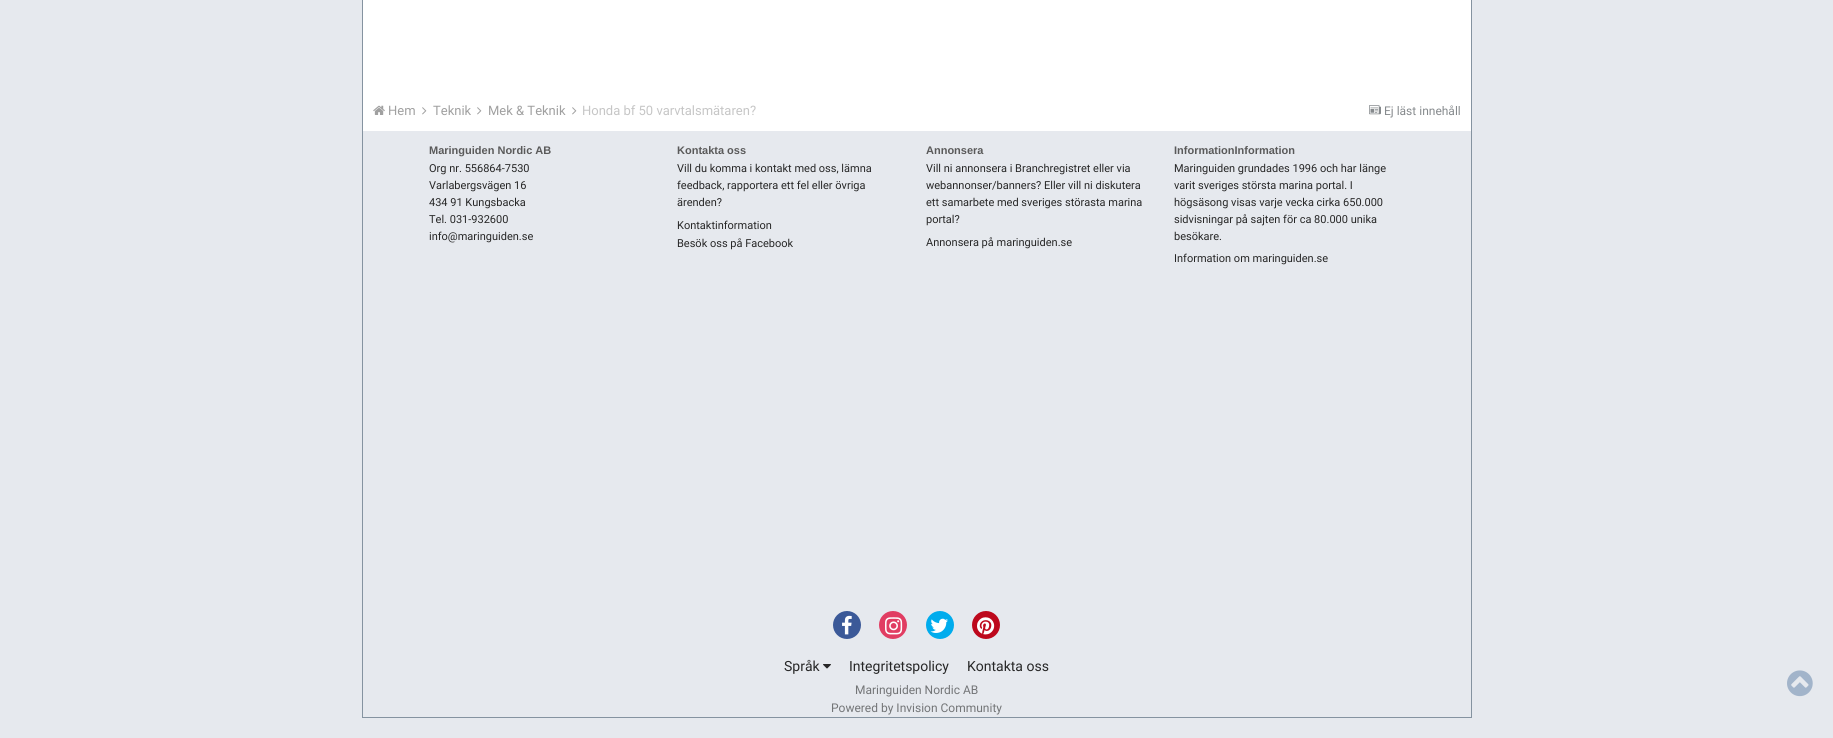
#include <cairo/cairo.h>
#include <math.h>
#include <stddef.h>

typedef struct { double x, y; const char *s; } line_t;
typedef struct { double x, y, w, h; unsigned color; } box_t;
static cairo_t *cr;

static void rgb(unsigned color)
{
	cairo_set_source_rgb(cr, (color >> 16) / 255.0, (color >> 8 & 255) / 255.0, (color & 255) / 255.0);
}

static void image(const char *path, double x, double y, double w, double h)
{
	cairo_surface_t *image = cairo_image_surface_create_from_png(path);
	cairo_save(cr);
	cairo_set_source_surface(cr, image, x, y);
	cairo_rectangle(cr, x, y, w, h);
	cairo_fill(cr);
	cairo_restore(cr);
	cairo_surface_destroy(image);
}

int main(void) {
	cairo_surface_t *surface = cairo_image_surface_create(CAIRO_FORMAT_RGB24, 1833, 738);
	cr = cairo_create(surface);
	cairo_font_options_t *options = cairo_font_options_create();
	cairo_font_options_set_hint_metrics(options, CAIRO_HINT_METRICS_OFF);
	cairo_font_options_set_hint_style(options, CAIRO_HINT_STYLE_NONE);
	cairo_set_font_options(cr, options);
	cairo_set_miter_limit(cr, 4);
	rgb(0xe6e9ee);
	cairo_paint(cr);
	rgb(0xffffff);
	cairo_rectangle(cr, 363, 0, 1108, 131);
	cairo_fill(cr);
	image("img/1.png", 373, 105, 12, 10);
	image("img/2.png", 422, 107, 5, 8);
	image("img/2.png", 477, 107, 5, 8);
	image("img/2.png", 572, 107, 5, 8);
	image("img/3.png", 1369, 105, 12, 10);
	image("img/4.png", 1787, 670, 26, 27);
	{
		static const box_t items[] = {
			{1471, 0, 1, 718, 0x8593a0},
			{362, 717, 1110, 1, 0x8593a0},
			{362, 0, 1, 718, 0x8593a0},
		};
		for (size_t i = 0; i < sizeof items / sizeof *items; i++) {
			rgb(items[i].color);
			cairo_rectangle(cr, items[i].x, items[i].y, items[i].w, items[i].h);
			cairo_fill(cr);
		}
	}
	rgb(0x3b5998);
	cairo_arc(cr, 847, 625, 14, 0, 2 * M_PI);
	cairo_fill(cr);
	image("img/5.png", 842, 615, 10, 20);
	rgb(0xe13d62);
	cairo_arc(cr, 893, 625, 14, 0, 2 * M_PI);
	cairo_fill(cr);
	image("img/6.png", 885, 617, 18, 18);
	rgb(0x00aced);
	cairo_arc(cr, 940, 625, 14, 0, 2 * M_PI);
	cairo_fill(cr);
	image("img/7.png", 930, 618, 18, 15);
	rgb(0xbd081c);
	cairo_arc(cr, 986, 625, 14, 0, 2 * M_PI);
	cairo_fill(cr);
	image("img/8.png", 977, 617, 18, 18);
	image("img/9.png", 823, 664, 8, 5);
	cairo_select_font_face(cr, "Roboto", CAIRO_FONT_SLANT_NORMAL, CAIRO_FONT_WEIGHT_NORMAL);
	cairo_set_font_size(cr, 13);
	rgb(0xa0a0a0);
	{
		static const line_t items[] = {
			{388, 115, "Hem"},
			{433, 115, "Teknik"},
			{488, 115, "Mek & Teknik"},
		};
		for (size_t i = 0; i < sizeof items / sizeof *items; i++) {
			cairo_move_to(cr, items[i].x, items[i].y);
			cairo_show_text(cr, items[i].s);
		}
	}
	rgb(0xc6c6c6);
	cairo_move_to(cr, 582, 115);
	cairo_show_text(cr, "Honda bf 50 varvtalsmätaren?");
	cairo_set_font_size(cr, 12);
	rgb(0x868a8d);
	cairo_move_to(cr, 1384, 115);
	cairo_show_text(cr, "Ej läst innehåll");
	cairo_select_font_face(cr, "Liberation Sans", CAIRO_FONT_SLANT_NORMAL, CAIRO_FONT_WEIGHT_BOLD);
	cairo_set_font_size(cr, 11);
	rgb(0x5a5a5a);
	cairo_move_to(cr, 429, 154);
	cairo_show_text(cr, "Maringuiden Nordic AB");
	cairo_select_font_face(cr, "Roboto", CAIRO_FONT_SLANT_NORMAL, CAIRO_FONT_WEIGHT_NORMAL);
	rgb(0x272727);
	{
		static const line_t items[] = {
			{429, 172, "Org nr. 556864-7530"},
			{429, 189, "Varlabergsvägen 16"},
			{429, 206, "434 91 Kungsbacka"},
			{429, 223, "Tel. 031-932600"},
			{429, 240, "info@maringuiden.se"},
		};
		for (size_t i = 0; i < sizeof items / sizeof *items; i++) {
			cairo_move_to(cr, items[i].x, items[i].y);
			cairo_show_text(cr, items[i].s);
		}
	}
	cairo_select_font_face(cr, "Liberation Sans", CAIRO_FONT_SLANT_NORMAL, CAIRO_FONT_WEIGHT_BOLD);
	rgb(0x5a5a5a);
	cairo_move_to(cr, 677, 154);
	cairo_show_text(cr, "Kontakta oss");
	cairo_select_font_face(cr, "Roboto", CAIRO_FONT_SLANT_NORMAL, CAIRO_FONT_WEIGHT_NORMAL);
	rgb(0x272727);
	{
		static const line_t items[] = {
			{677, 172, "Vill du komma i kontakt med oss, lämna"},
			{677, 189, "feedback, rapportera ett fel eller övriga"},
			{677, 206, "ärenden?"},
			{677, 229, "Kontaktinformation"},
			{677, 247, "Besök oss på Facebook"},
		};
		for (size_t i = 0; i < sizeof items / sizeof *items; i++) {
			cairo_move_to(cr, items[i].x, items[i].y);
			cairo_show_text(cr, items[i].s);
		}
	}
	cairo_select_font_face(cr, "Liberation Sans", CAIRO_FONT_SLANT_NORMAL, CAIRO_FONT_WEIGHT_BOLD);
	rgb(0x5a5a5a);
	cairo_move_to(cr, 926, 154);
	cairo_show_text(cr, "Annonsera");
	cairo_select_font_face(cr, "Roboto", CAIRO_FONT_SLANT_NORMAL, CAIRO_FONT_WEIGHT_NORMAL);
	rgb(0x272727);
	{
		static const line_t items[] = {
			{926, 172, "Vill ni annonsera i Branchregistret eller via"},
			{926, 189, "webannonser/banners? Eller vill ni diskutera"},
			{926, 206, "ett samarbete med sveriges störasta marina"},
			{926, 223, "portal?"},
			{926, 246, "Annonsera på maringuiden.se"},
		};
		for (size_t i = 0; i < sizeof items / sizeof *items; i++) {
			cairo_move_to(cr, items[i].x, items[i].y);
			cairo_show_text(cr, items[i].s);
		}
	}
	cairo_select_font_face(cr, "Liberation Sans", CAIRO_FONT_SLANT_NORMAL, CAIRO_FONT_WEIGHT_BOLD);
	rgb(0x5a5a5a);
	cairo_move_to(cr, 1174, 154);
	cairo_show_text(cr, "InformationInformation");
	cairo_select_font_face(cr, "Roboto", CAIRO_FONT_SLANT_NORMAL, CAIRO_FONT_WEIGHT_NORMAL);
	rgb(0x272727);
	{
		static const line_t items[] = {
			{1174, 172, "Maringuiden grundades 1996 och har länge"},
			{1174, 189, "varit sveriges största marina portal. I"},
			{1174, 206, "högsäsong visas varje vecka cirka 650.000"},
			{1174, 223, "sidvisningar på sajten för ca 80.000 unika"},
			{1174, 240, "besökare."},
			{1174, 262, "Information om maringuiden.se"},
		};
		for (size_t i = 0; i < sizeof items / sizeof *items; i++) {
			cairo_move_to(cr, items[i].x, items[i].y);
			cairo_show_text(cr, items[i].s);
		}
	}
	cairo_set_font_size(cr, 14);
	{
		static const line_t items[] = {
			{784, 671, "Språk"},
			{849, 671, "Integritetspolicy"},
			{967, 671, "Kontakta oss"},
		};
		for (size_t i = 0; i < sizeof items / sizeof *items; i++) {
			cairo_move_to(cr, items[i].x, items[i].y);
			cairo_show_text(cr, items[i].s);
		}
	}
	cairo_set_font_size(cr, 12);
	rgb(0x737577);
	cairo_move_to(cr, 855, 694);
	cairo_show_text(cr, "Maringuiden Nordic AB");
	cairo_move_to(cr, 831, 712);
	cairo_show_text(cr, "Powered by Invision Community");
	cairo_surface_write_to_png(surface, "page.png");
	cairo_font_options_destroy(options);
	cairo_destroy(cr);
	cairo_surface_destroy(surface);
	return 0;
}
